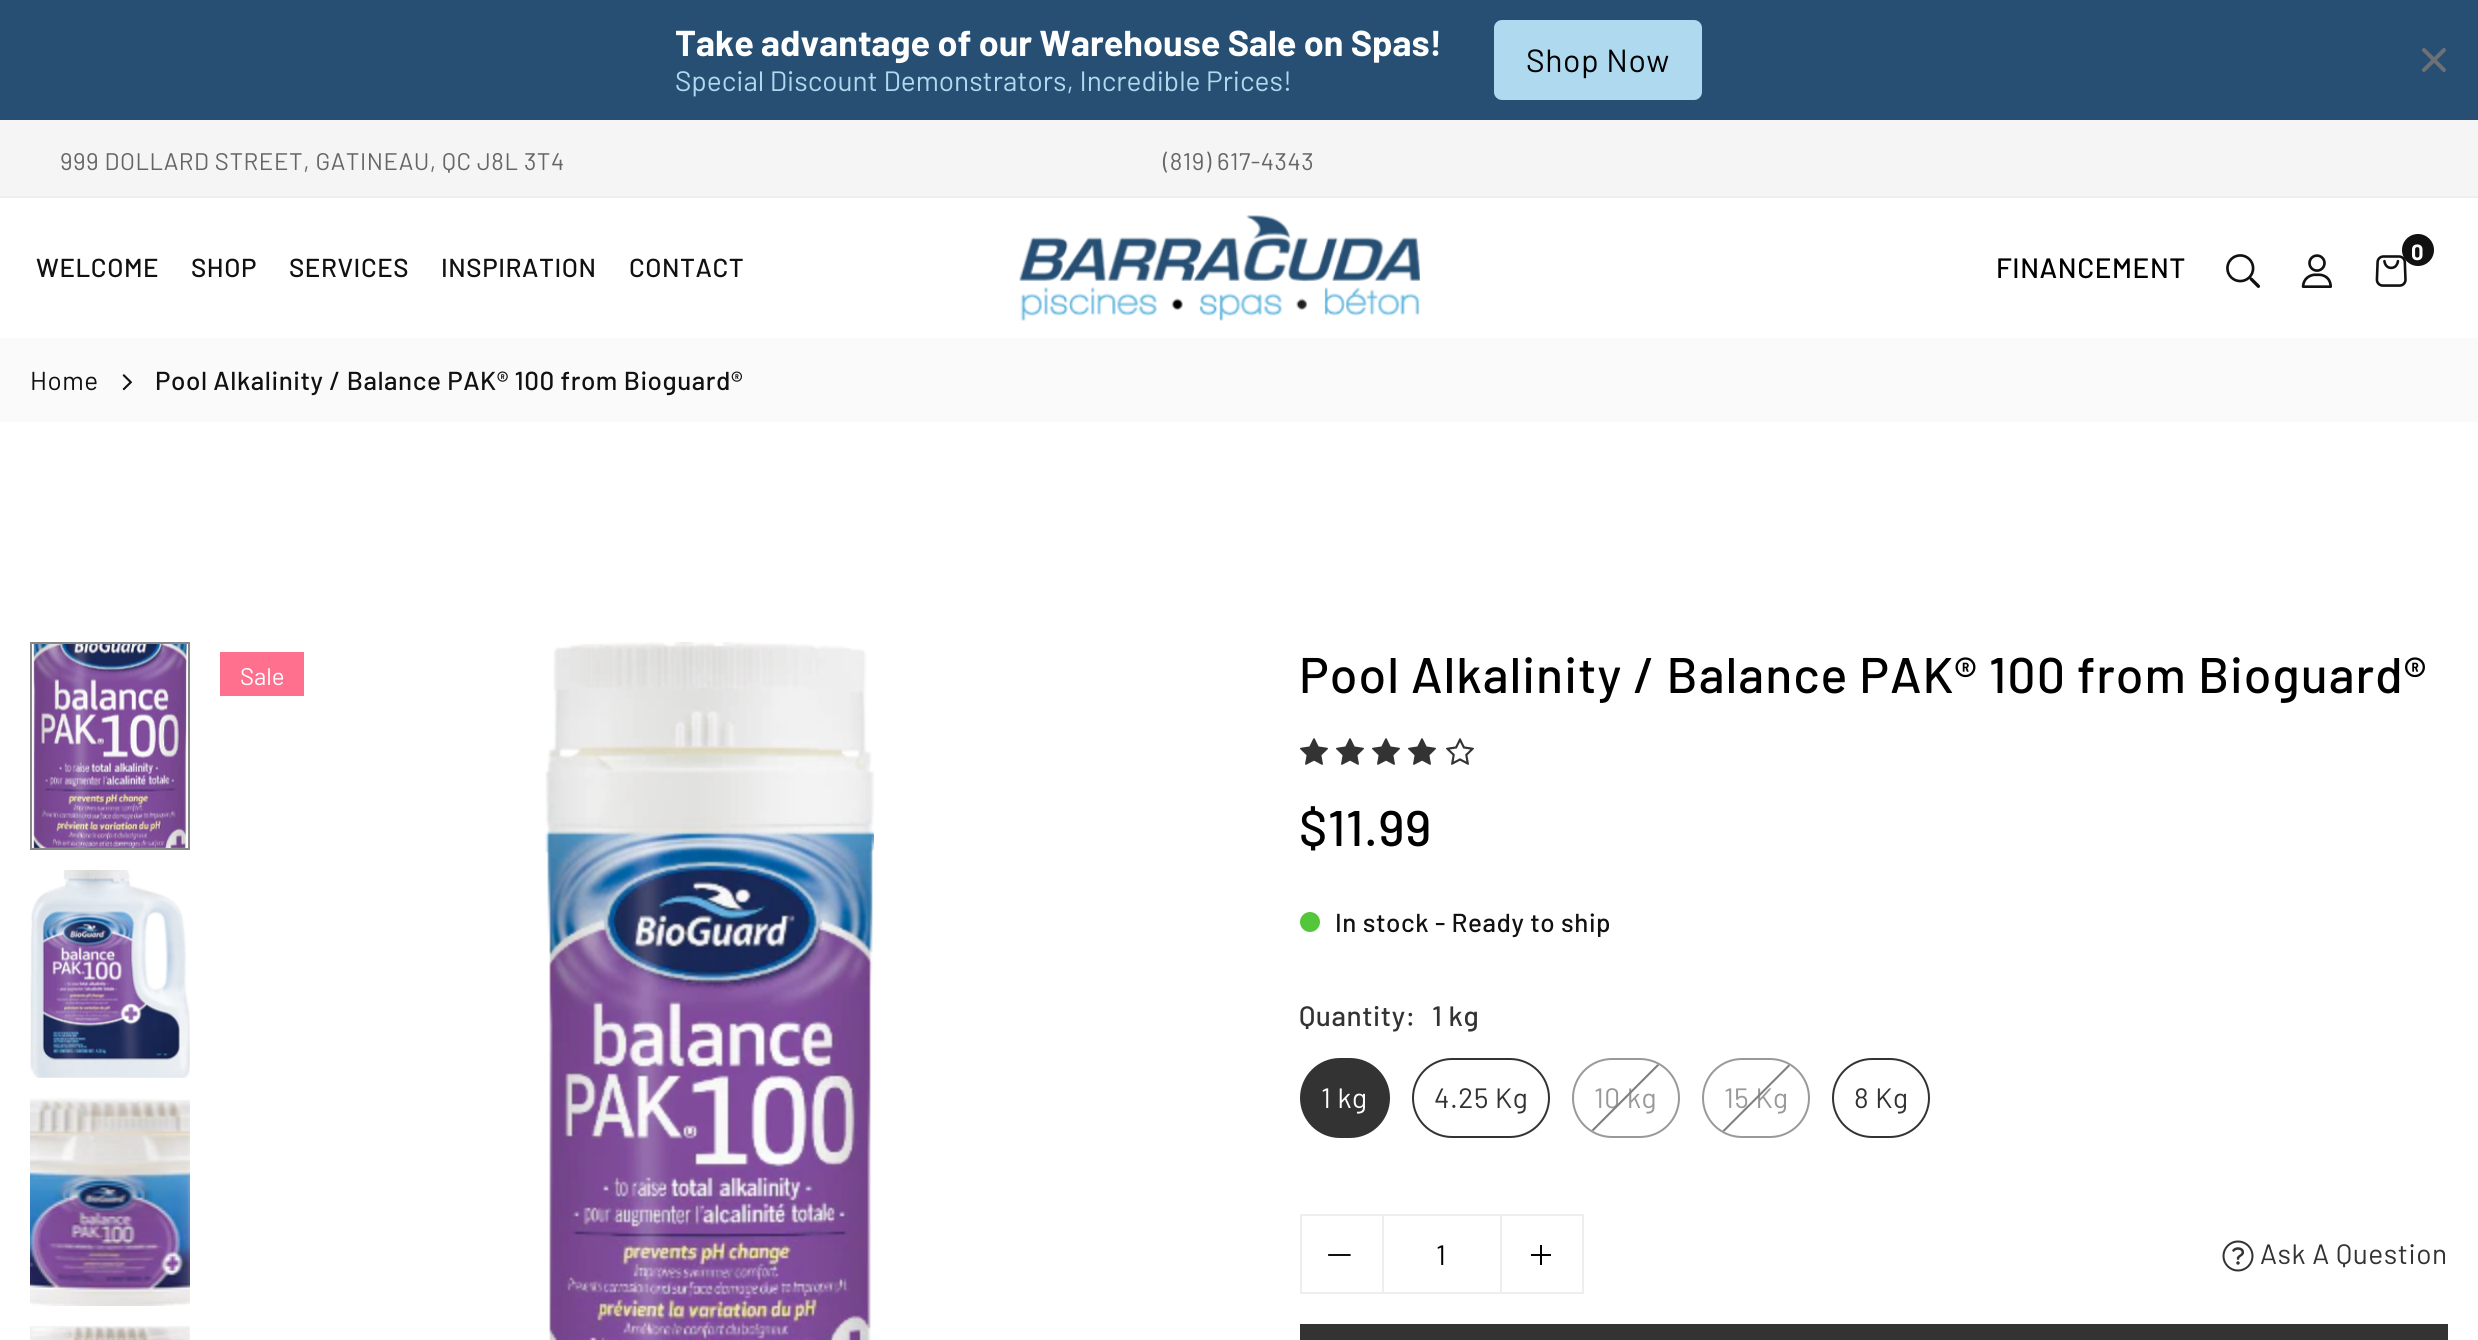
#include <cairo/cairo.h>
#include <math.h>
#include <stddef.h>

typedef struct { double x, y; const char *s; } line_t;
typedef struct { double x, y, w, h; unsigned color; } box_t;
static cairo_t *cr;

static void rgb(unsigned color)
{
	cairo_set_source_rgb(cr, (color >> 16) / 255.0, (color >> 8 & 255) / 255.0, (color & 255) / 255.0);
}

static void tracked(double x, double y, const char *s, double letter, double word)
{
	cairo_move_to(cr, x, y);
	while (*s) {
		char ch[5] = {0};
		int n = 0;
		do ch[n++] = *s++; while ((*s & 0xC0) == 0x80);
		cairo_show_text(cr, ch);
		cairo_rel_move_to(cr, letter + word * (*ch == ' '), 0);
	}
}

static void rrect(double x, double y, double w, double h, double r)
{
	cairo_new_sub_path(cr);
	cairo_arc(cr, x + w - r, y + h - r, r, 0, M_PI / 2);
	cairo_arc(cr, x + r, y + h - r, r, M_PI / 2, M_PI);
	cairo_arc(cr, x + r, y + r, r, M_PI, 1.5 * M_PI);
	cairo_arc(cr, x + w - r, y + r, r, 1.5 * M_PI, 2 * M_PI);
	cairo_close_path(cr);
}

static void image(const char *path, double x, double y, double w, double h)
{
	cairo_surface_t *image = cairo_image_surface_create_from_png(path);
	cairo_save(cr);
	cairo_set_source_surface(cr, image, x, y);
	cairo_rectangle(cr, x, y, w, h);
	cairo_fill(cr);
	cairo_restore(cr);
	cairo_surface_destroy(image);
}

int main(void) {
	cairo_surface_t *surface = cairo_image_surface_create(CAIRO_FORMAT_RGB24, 2478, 1340);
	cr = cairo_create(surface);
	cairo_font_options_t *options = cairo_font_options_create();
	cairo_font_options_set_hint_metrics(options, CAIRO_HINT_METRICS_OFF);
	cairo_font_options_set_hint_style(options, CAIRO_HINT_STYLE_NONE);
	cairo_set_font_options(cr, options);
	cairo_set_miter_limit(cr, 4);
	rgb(0xffffff);
	cairo_paint(cr);
	rgb(0x264f73);
	cairo_rectangle(cr, 0, 0, 2478, 120);
	cairo_fill(cr);
	rgb(0xafd9ee);
	rrect(1494, 20, 208, 80, 8);
	cairo_fill(cr);
	image("img/1.png", 2422, 48, 24, 24);
	rgb(0xf5f5f5);
	cairo_rectangle(cr, 0, 120, 2478, 76);
	cairo_fill(cr);
	rgb(0xeeeeee);
	cairo_rectangle(cr, 0, 196, 2478, 2);
	cairo_fill(cr);
	image("img/2.png", 1019, 215, 401, 106);
	image("img/3.png", 2226, 254, 34, 34);
	image("img/4.png", 2301, 254, 31, 34);
	image("img/5.png", 2375, 255, 32, 32);
	rgb(0x111111);
	cairo_arc(cr, 2418, 250, 16, 0, 2 * M_PI);
	cairo_fill(cr);
	rgb(0xfafafa);
	cairo_rectangle(cr, 0, 338, 2478, 84);
	cairo_fill(cr);
	image("img/6.png", 122, 374, 10, 17);
	cairo_rectangle(cr, 31, 643, 158, 206);
	rgb(0x888888);
	cairo_stroke(cr);
	image("img/7.png", 33, 644, 154, 204);
	image("img/8.png", 30, 870, 160, 208);
	image("img/9.png", 30, 1098, 160, 208);
	image("img/10.png", 30, 1326, 160, 14);
	rgb(0xff708e);
	cairo_rectangle(cr, 220, 652, 84, 44);
	cairo_fill(cr);
	image("img/11.png", 545, 642, 329, 698);
	image("img/12.png", 1300, 738, 28, 27);
	image("img/12.png", 1336, 738, 28, 27);
	image("img/12.png", 1372, 738, 28, 27);
	image("img/12.png", 1408, 738, 28, 27);
	image("img/13.png", 1446, 738, 28, 27);
	rgb(0x54c63a);
	cairo_arc(cr, 1310, 922, 10, 0, 2 * M_PI);
	cairo_fill(cr);
	rgb(0x333333);
	rrect(1301, 1059, 88, 78, 39);
	cairo_fill_preserve(cr);
	cairo_stroke(cr);
	rrect(1413, 1059, 136, 78, 39);
	cairo_stroke(cr);
	rrect(1573, 1059, 106, 78, 39);
	rgb(0x999999);
	cairo_stroke(cr);
	rrect(1703, 1059, 106, 78, 39);
	cairo_stroke(cr);
	rrect(1833, 1059, 96, 78, 39);
	rgb(0x333333);
	cairo_stroke(cr);
	cairo_rectangle(cr, 1301, 1215, 282, 78);
	rgb(0xeeeeee);
	cairo_stroke(cr);
	image("img/14.png", 1328, 1254, 23, 2);
	{
		static const box_t items[] = {
			{1500, 1216, 2, 76, 0xeeeeee},
			{1382, 1216, 2, 76, 0xeeeeee},
			{1531, 1254, 20, 2, 0x000000},
			{1540, 1245, 2, 20, 0x000000},
		};
		for (size_t i = 0; i < sizeof items / sizeof *items; i++) {
			rgb(items[i].color);
			cairo_rectangle(cr, items[i].x, items[i].y, items[i].w, items[i].h);
			cairo_fill(cr);
		}
	}
	image("img/15.png", 2222, 1240, 32, 32);
	rgb(0x333333);
	cairo_rectangle(cr, 1300, 1324, 1148, 16);
	cairo_fill(cr);
	cairo_select_font_face(cr, "Barlow", CAIRO_FONT_SLANT_NORMAL, CAIRO_FONT_WEIGHT_BOLD);
	cairo_set_font_size(cr, 36);
	rgb(0xffffff);
	cairo_move_to(cr, 675, 56);
	cairo_show_text(cr, "Take advantage of our Warehouse Sale on Spas!");
	cairo_select_font_face(cr, "Barlow", CAIRO_FONT_SLANT_NORMAL, CAIRO_FONT_WEIGHT_NORMAL);
	cairo_set_font_size(cr, 28);
	rgb(0xafd9ee);
	cairo_move_to(cr, 675, 91);
	cairo_show_text(cr, "Special Discount Demonstrators, Incredible Prices!");
	cairo_set_font_size(cr, 32);
	rgb(0x000000);
	tracked(1526, 72, "Shop Now", 0.55, 0);
	cairo_set_font_size(cr, 24);
	rgb(0x666666);
	tracked(60, 170, "999 DOLLARD STREET, GATINEAU, QC J8L 3T4", 0.55, 0);
	tracked(1163, 170, "(819) 617-4343", 0.55, 0);
	cairo_select_font_face(cr, "Barlow Medium", CAIRO_FONT_SLANT_NORMAL, CAIRO_FONT_WEIGHT_NORMAL);
	cairo_set_font_size(cr, 26);
	rgb(0x111111);
	{
		static const line_t items[] = {
			{36, 277, "WELCOME"},
			{191, 277, "SHOP"},
			{289, 277, "SERVICES"},
			{441, 277, "INSPIRATION"},
			{629, 277, "CONTACT"},
		};
		for (size_t i = 0; i < sizeof items / sizeof *items; i++) {
			tracked(items[i].x, items[i].y, items[i].s, 0.55, 0);
		}
	}
	cairo_set_font_size(cr, 28);
	rgb(0x000000);
	tracked(1996, 278, "FINANCEMENT", 0.55, 0);
	cairo_select_font_face(cr, "Barlow", CAIRO_FONT_SLANT_NORMAL, CAIRO_FONT_WEIGHT_BOLD);
	cairo_set_font_size(cr, 22);
	rgb(0xffffff);
	tracked(2411, 260, "0", 0.55, 0);
	cairo_select_font_face(cr, "Barlow", CAIRO_FONT_SLANT_NORMAL, CAIRO_FONT_WEIGHT_NORMAL);
	cairo_set_font_size(cr, 26);
	rgb(0x111111);
	tracked(30, 390, "Home", 0.55, 0);
	cairo_select_font_face(cr, "Barlow Medium", CAIRO_FONT_SLANT_NORMAL, CAIRO_FONT_WEIGHT_NORMAL);
	tracked(155, 390, "Pool Alkalinity / Balance PAK® 100 from Bioguard®", 0.55, 0);
	cairo_select_font_face(cr, "Barlow", CAIRO_FONT_SLANT_NORMAL, CAIRO_FONT_WEIGHT_NORMAL);
	cairo_set_font_size(cr, 24);
	rgb(0xffffff);
	cairo_move_to(cr, 240, 685);
	cairo_show_text(cr, "Sale");
	cairo_select_font_face(cr, "Barlow Medium", CAIRO_FONT_SLANT_NORMAL, CAIRO_FONT_WEIGHT_NORMAL);
	cairo_set_font_size(cr, 50);
	rgb(0x000000);
	tracked(1299, 693, "Pool Alkalinity / Balance PAK® 100 from Bioguard®", 1, 0);
	tracked(1299, 846, "$11.99", 0.55, 0);
	cairo_set_font_size(cr, 26);
	rgb(0x111111);
	tracked(1335, 932, "In stock - Ready to ship", 0.55, 0);
	cairo_set_font_size(cr, 28);
	rgb(0x333333);
	tracked(1299, 1026, "Quantity:", 0.55, 0);
	tracked(1432, 1026, "1 kg", 0.55, 0);
	cairo_select_font_face(cr, "Barlow", CAIRO_FONT_SLANT_NORMAL, CAIRO_FONT_WEIGHT_NORMAL);
	rgb(0xffffff);
	tracked(1321, 1108, "1 kg", 0.55, 0);
	rgb(0x333333);
	tracked(1434, 1108, "4.25 Kg", 0.55, 0);
	rgb(0x999999);
	tracked(1594, 1108, "10 kg", 0.55, 0);
	cairo_save(cr);
	rrect(1574, 1060, 104, 76, 38);
	cairo_clip(cr);
	cairo_new_path(cr);
	cairo_move_to(cr, 1677, 1046);
	cairo_line_to(cr, 1574, 1149);
	rgb(0x808080);
	cairo_set_line_width(cr, 2.1);
	cairo_stroke(cr);
	cairo_restore(cr);
	tracked(1724, 1108, "15 Kg", 0.55, 0);
	cairo_save(cr);
	rrect(1704, 1060, 104, 76, 38);
	cairo_clip(cr);
	cairo_new_path(cr);
	cairo_move_to(cr, 1808.5, 1046);
	cairo_line_to(cr, 1704, 1150.5);
	rgb(0x808080);
	cairo_set_line_width(cr, 2.1);
	cairo_stroke(cr);
	cairo_restore(cr);
	rgb(0x333333);
	tracked(1854, 1108, "8 Kg", 0.55, 0);
	rgb(0x000000);
	cairo_move_to(cr, 1436, 1265);
	cairo_show_text(cr, "1");
	rgb(0x333333);
	tracked(2260, 1264, "Ask A Question", 0.55, 0);
	cairo_surface_write_to_png(surface, "page.png");
	cairo_font_options_destroy(options);
	cairo_destroy(cr);
	cairo_surface_destroy(surface);
	return 0;
}
